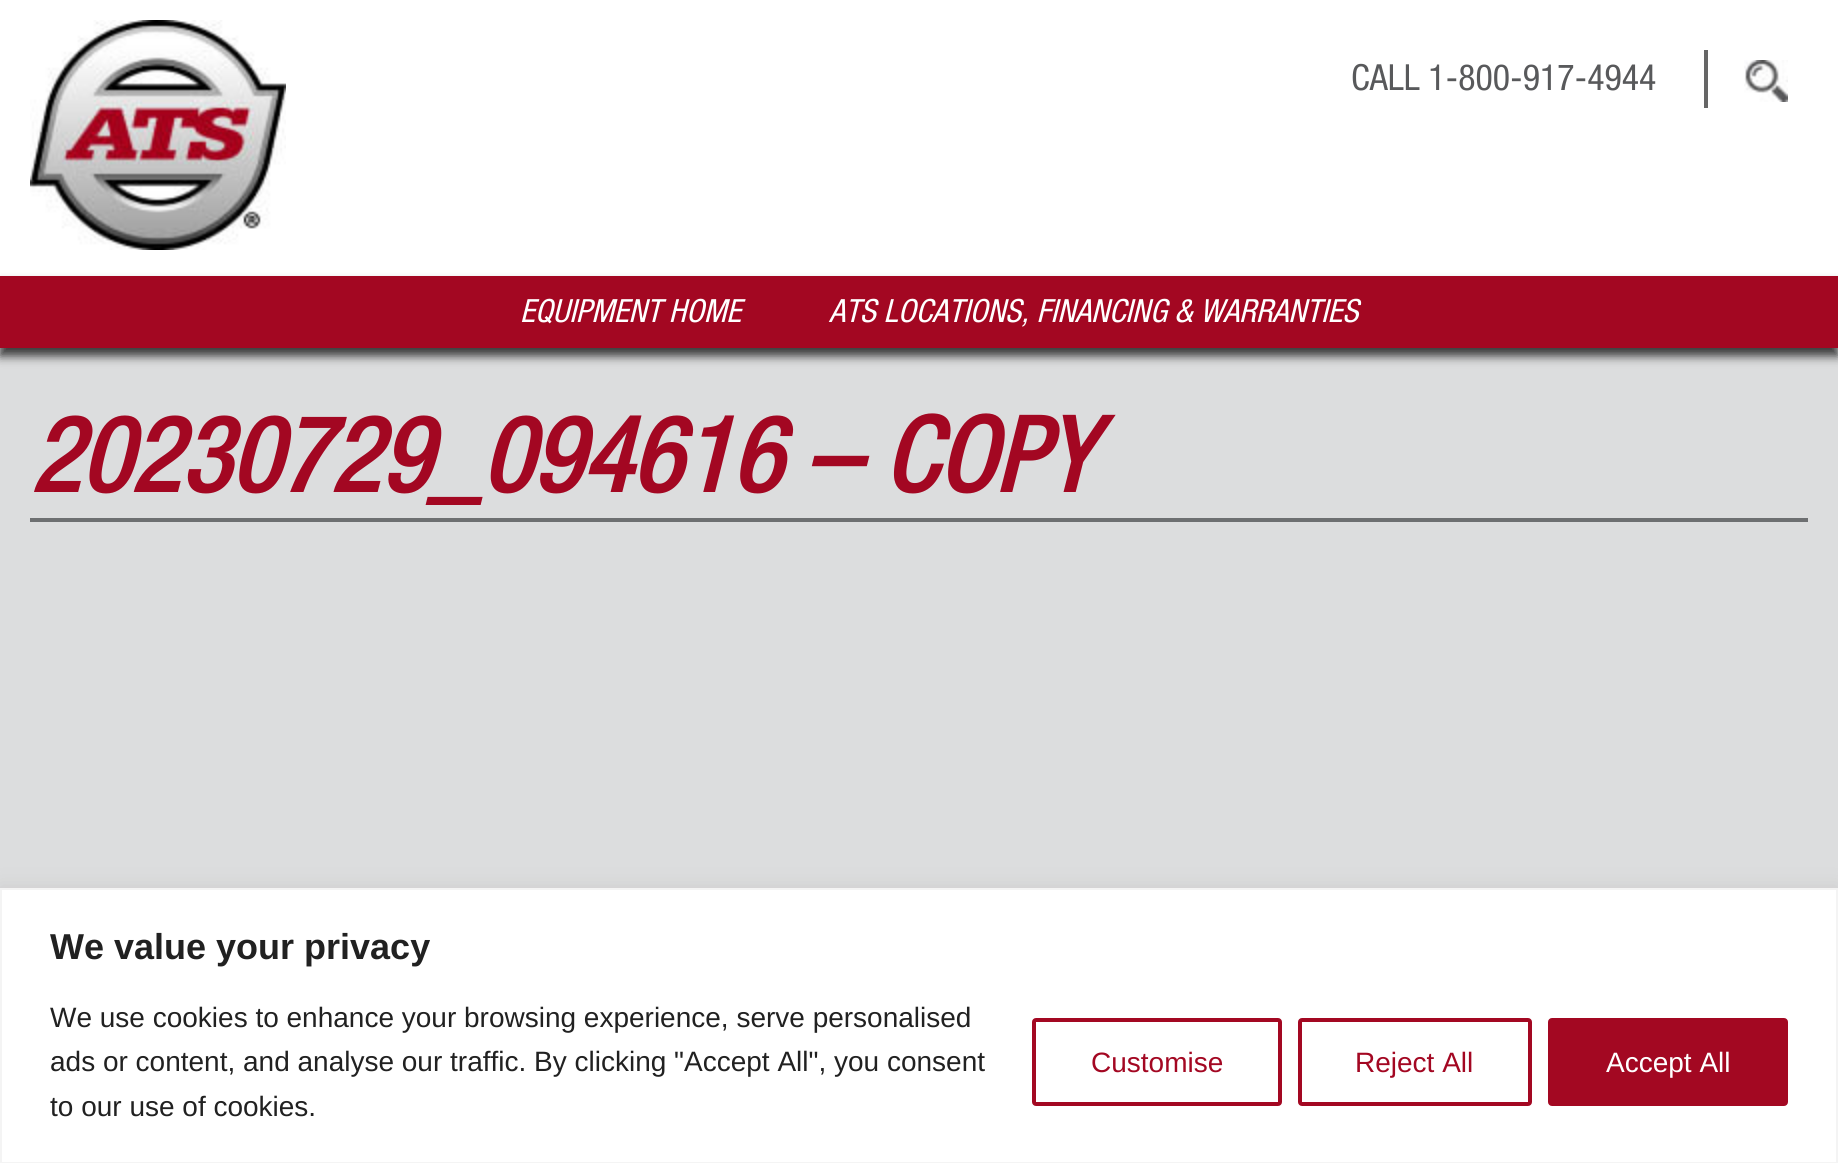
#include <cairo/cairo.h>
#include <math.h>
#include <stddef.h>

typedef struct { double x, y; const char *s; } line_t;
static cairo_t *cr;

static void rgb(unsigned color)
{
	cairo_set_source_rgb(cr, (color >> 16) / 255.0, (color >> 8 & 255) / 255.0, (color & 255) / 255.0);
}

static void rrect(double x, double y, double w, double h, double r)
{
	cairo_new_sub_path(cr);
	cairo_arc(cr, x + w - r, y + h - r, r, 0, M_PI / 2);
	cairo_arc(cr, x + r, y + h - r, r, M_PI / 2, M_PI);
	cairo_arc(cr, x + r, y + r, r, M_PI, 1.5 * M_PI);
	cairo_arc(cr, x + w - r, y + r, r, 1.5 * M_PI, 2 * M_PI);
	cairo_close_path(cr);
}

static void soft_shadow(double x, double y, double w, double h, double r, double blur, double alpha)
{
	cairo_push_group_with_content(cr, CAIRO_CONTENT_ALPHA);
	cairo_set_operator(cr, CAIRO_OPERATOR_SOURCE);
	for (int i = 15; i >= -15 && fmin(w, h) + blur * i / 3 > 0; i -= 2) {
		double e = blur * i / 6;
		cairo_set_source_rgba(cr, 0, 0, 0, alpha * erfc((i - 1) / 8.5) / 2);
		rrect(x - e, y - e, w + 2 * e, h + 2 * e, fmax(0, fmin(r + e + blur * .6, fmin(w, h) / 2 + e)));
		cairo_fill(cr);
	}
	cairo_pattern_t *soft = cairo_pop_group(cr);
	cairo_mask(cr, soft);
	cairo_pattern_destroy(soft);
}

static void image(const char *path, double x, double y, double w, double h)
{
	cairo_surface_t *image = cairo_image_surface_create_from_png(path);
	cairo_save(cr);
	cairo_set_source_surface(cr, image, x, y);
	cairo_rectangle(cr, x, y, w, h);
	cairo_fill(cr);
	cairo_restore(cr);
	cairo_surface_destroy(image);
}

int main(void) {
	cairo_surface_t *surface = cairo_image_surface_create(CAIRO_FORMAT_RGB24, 1838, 1163);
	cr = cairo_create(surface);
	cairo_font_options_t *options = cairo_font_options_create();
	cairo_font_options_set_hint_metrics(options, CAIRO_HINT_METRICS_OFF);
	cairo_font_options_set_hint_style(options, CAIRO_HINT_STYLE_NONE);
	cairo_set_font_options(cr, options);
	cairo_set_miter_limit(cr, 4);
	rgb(0xffffff);
	cairo_paint(cr);
	image("img/1.png", 30, 20, 256, 230);
	rgb(0x666666);
	cairo_rectangle(cr, 1704, 50, 4, 58);
	cairo_fill(cr);
	image("img/2.png", 1744, 60, 44, 42);
	rgb(0xdcddde);
	cairo_rectangle(cr, 0, 348, 1838, 540);
	cairo_fill(cr);
	rgb(0x000000);
	soft_shadow(0, 284, 1838, 72, 0, 5, 0.75);
	rgb(0xa30722);
	cairo_rectangle(cr, 0, 276, 1838, 72);
	cairo_fill(cr);
	rgb(0x6d6f71);
	cairo_rectangle(cr, 30, 518, 1778, 4);
	cairo_fill(cr);
	rgb(0xacabab);
	soft_shadow(0, 886, 1838, 276, 0, 10, 0.3);
	rgb(0xffffff);
	cairo_rectangle(cr, 1, 889, 1836, 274);
	cairo_fill_preserve(cr);
	rgb(0xf4f4f4);
	cairo_stroke(cr);
	rrect(1034, 1020, 246, 84, 2);
	rgb(0xa30822);
	cairo_set_line_width(cr, 4);
	cairo_stroke(cr);
	rrect(1300, 1020, 230, 84, 2);
	cairo_stroke(cr);
	rrect(1550, 1020, 236, 84, 2);
	cairo_fill_preserve(cr);
	cairo_stroke(cr);
	cairo_select_font_face(cr, "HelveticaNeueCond", CAIRO_FONT_SLANT_NORMAL, CAIRO_FONT_WEIGHT_NORMAL);
	cairo_set_font_size(cr, 36);
	rgb(0x58595b);
	cairo_move_to(cr, 1351, 90);
	cairo_show_text(cr, "CALL 1-800-917-4944");
	cairo_select_font_face(cr, "HelveticaNeueCond", CAIRO_FONT_SLANT_ITALIC, CAIRO_FONT_WEIGHT_NORMAL);
	cairo_set_font_size(cr, 32);
	rgb(0xffffff);
	cairo_move_to(cr, 520, 322);
	cairo_show_text(cr, "EQUIPMENT HOME");
	cairo_move_to(cr, 829, 322);
	cairo_show_text(cr, "ATS LOCATIONS, FINANCING & WARRANTIES");
	cairo_select_font_face(cr, "HelveticaNeueCond", CAIRO_FONT_SLANT_ITALIC, CAIRO_FONT_WEIGHT_BOLD);
	cairo_set_font_size(cr, 104);
	rgb(0xa30722);
	cairo_move_to(cr, 30, 492);
	cairo_show_text(cr, "20230729_094616 – COPY");
	cairo_select_font_face(cr, "Liberation Sans", CAIRO_FONT_SLANT_NORMAL, CAIRO_FONT_WEIGHT_BOLD);
	cairo_set_font_size(cr, 36);
	rgb(0x212121);
	cairo_move_to(cr, 50, 959);
	cairo_show_text(cr, "We value your privacy");
	cairo_select_font_face(cr, "Liberation Sans", CAIRO_FONT_SLANT_NORMAL, CAIRO_FONT_WEIGHT_NORMAL);
	cairo_set_font_size(cr, 28);
	{
		static const line_t items[] = {
			{50, 1027, "We use cookies to enhance your browsing experience, serve personalised"},
			{50, 1071, "ads or content, and analyse our traffic. By clicking \"Accept All\", you consent"},
			{50, 1116, "to our use of cookies."},
		};
		for (size_t i = 0; i < sizeof items / sizeof *items; i++) {
			cairo_move_to(cr, items[i].x, items[i].y);
			cairo_show_text(cr, items[i].s);
		}
	}
	rgb(0xa30722);
	cairo_move_to(cr, 1091, 1072);
	cairo_show_text(cr, "Customise");
	cairo_move_to(cr, 1355, 1072);
	cairo_show_text(cr, "Reject All");
	rgb(0xffffff);
	cairo_move_to(cr, 1606, 1072);
	cairo_show_text(cr, "Accept All");
	cairo_surface_write_to_png(surface, "page.png");
	cairo_font_options_destroy(options);
	cairo_destroy(cr);
	cairo_surface_destroy(surface);
	return 0;
}
